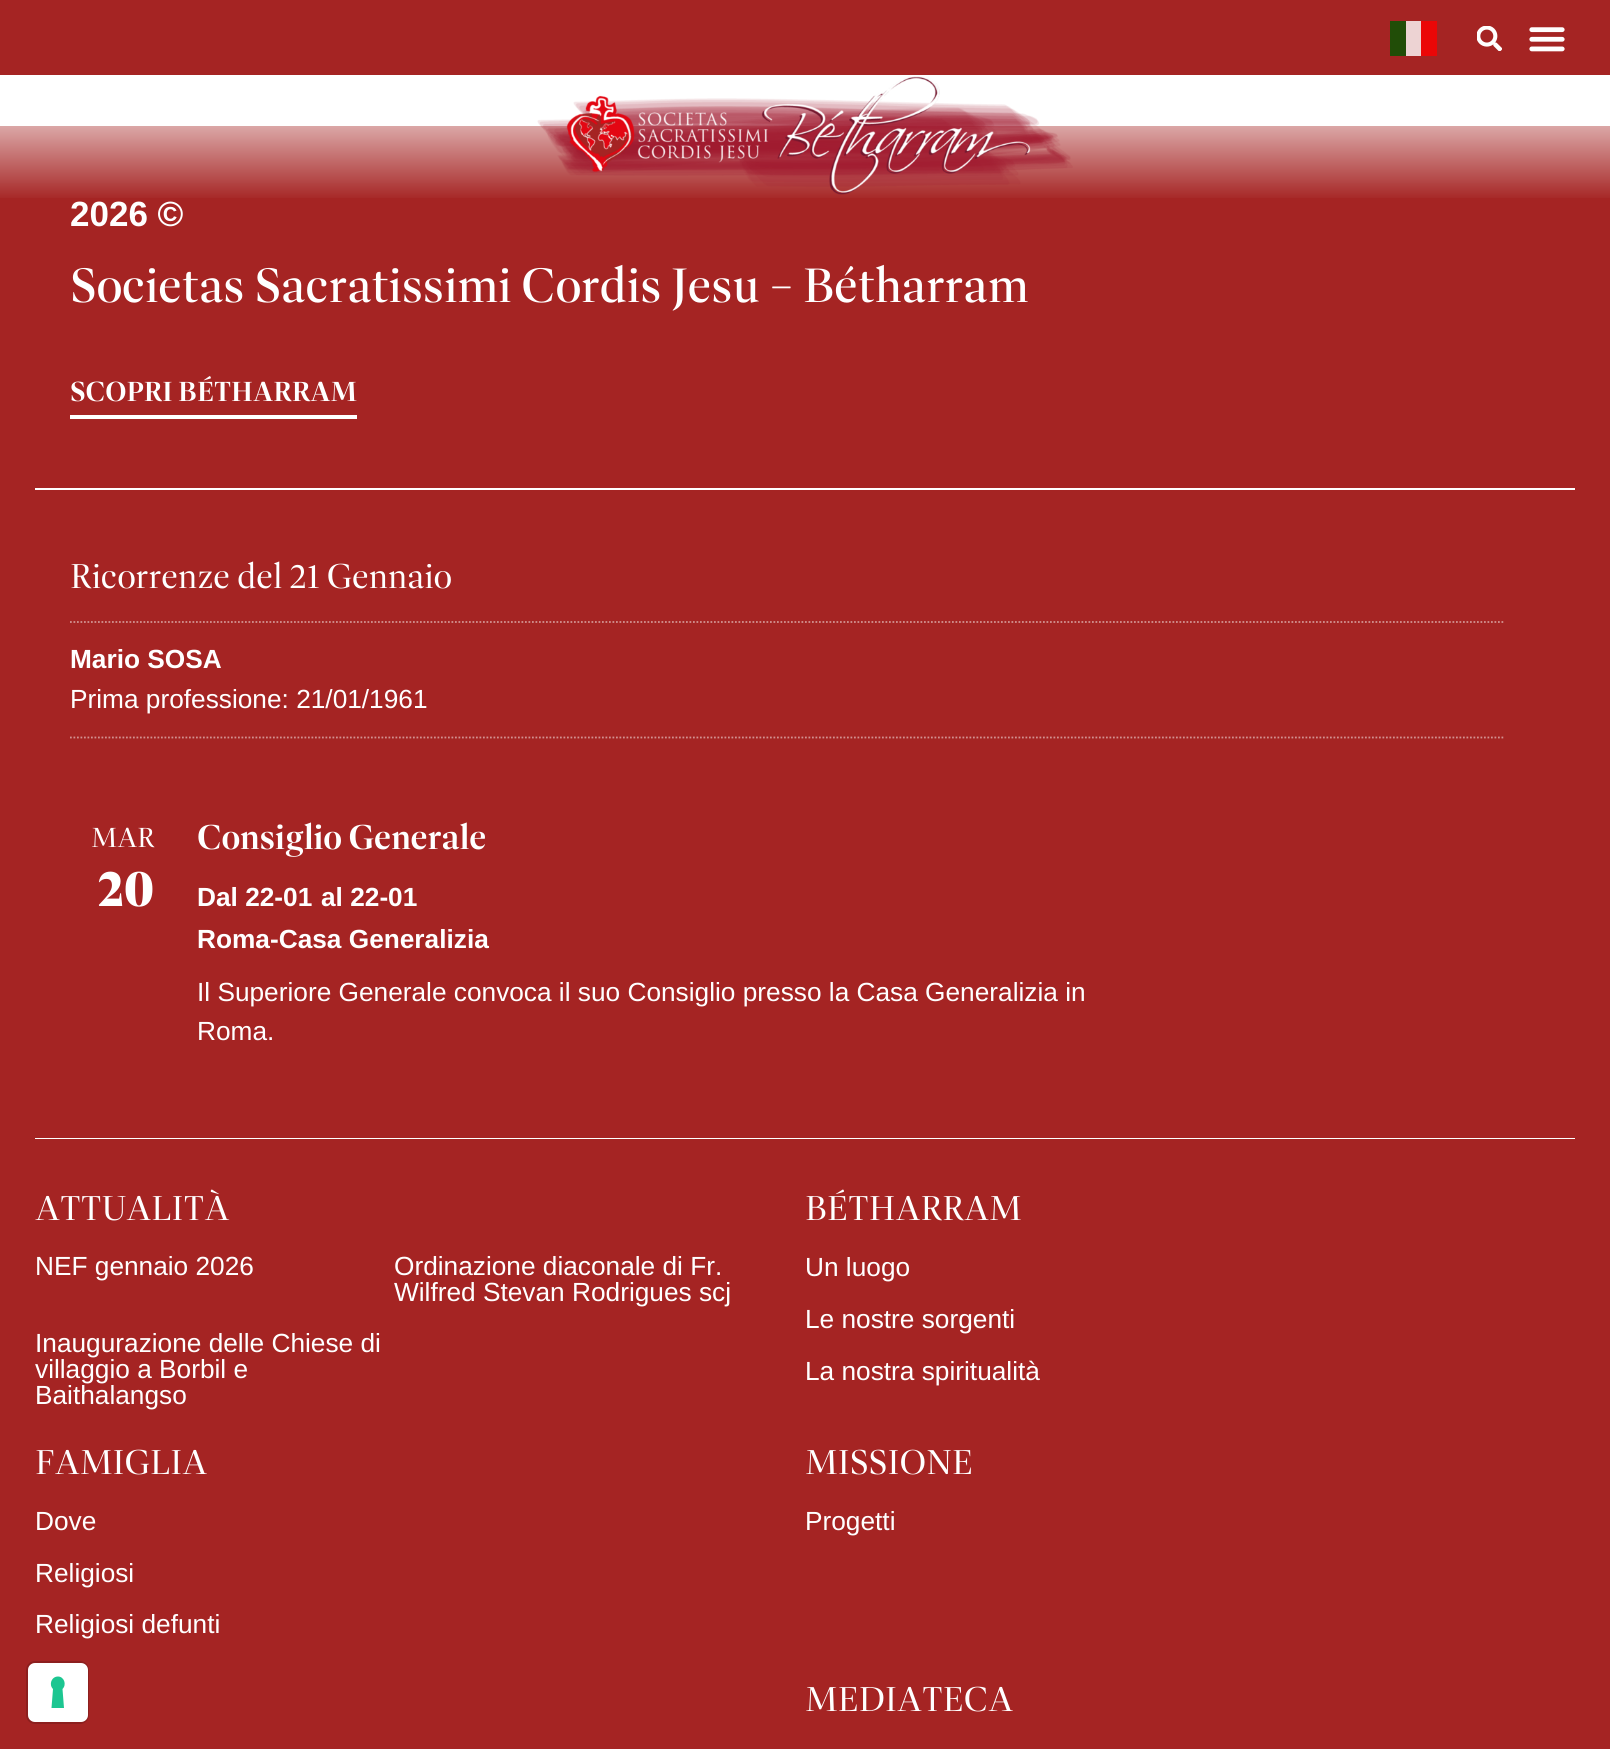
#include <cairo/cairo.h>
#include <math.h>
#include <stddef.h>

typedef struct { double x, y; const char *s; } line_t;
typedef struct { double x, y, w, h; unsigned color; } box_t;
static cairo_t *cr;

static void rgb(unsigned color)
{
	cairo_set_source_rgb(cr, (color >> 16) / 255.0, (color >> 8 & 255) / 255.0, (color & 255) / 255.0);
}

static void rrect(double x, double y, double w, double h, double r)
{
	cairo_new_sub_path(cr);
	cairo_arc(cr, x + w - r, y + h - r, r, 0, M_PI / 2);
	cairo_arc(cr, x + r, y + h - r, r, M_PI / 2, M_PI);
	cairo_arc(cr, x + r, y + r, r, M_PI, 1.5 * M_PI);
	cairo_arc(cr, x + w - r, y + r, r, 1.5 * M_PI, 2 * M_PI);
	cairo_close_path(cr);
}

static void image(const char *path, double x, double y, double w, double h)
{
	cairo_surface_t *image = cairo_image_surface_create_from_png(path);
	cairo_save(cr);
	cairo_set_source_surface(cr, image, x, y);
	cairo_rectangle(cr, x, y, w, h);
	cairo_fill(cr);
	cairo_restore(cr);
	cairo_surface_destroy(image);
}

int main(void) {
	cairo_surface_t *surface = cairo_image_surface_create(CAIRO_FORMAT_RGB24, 1610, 1749);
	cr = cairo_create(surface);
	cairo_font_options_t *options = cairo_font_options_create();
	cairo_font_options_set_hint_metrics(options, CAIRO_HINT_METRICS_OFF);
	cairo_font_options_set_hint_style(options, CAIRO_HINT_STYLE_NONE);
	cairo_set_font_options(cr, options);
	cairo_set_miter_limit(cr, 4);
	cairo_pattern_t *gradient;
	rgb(0xffffff);
	cairo_paint(cr);
	{
		static const box_t items[] = {
			{0, 0, 1610, 75, 0xa52423},
			{1390, 21, 16, 35, 0x214d07},
			{1406, 21, 15, 35, 0xedd3d3},
			{1421, 21, 16, 35, 0xeb0707},
		};
		for (size_t i = 0; i < sizeof items / sizeof *items; i++) {
			rgb(items[i].color);
			cairo_rectangle(cr, items[i].x, items[i].y, items[i].w, items[i].h);
			cairo_fill(cr);
		}
	}
	image("img/1.png", 1477, 26, 25, 25);
	image("img/2.png", 1529, 27, 36, 25);
	rgb(0xa52423);
	cairo_rectangle(cr, 0, 126, 1610, 1623);
	cairo_fill(cr);
	gradient = cairo_pattern_create_linear(805, 212, 805, 75);
	cairo_pattern_add_color_stop_rgba(gradient, 0.08, 1, 1, 1, 0);
	cairo_pattern_add_color_stop_rgba(gradient, 1, 1, 1, 1, 1);
	cairo_set_source(cr, gradient);
	cairo_pattern_destroy(gradient);
	cairo_rectangle(cr, 0, 126, 1610, 72);
	cairo_fill(cr);
	image("img/3.png", 537, 76, 536, 119);
	{
		static const box_t items[] = {
			{35, 488, 1540, 2, 0xffffff},
			{70, 415, 287, 4, 0xffffff},
			{35, 1138, 1540, 1, 0xffffff},
		};
		for (size_t i = 0; i < sizeof items / sizeof *items; i++) {
			rgb(items[i].color);
			cairo_rectangle(cr, items[i].x, items[i].y, items[i].w, items[i].h);
			cairo_fill(cr);
		}
	}
	cairo_new_path(cr);
	cairo_move_to(cr, 70, 737.5);
	cairo_line_to(cr, 1505, 737.5);
	rgb(0xd29291);
	cairo_set_line_width(cr, 1.8);
	cairo_set_dash(cr, (double[]){1.75, 1.75}, 2, 0);
	cairo_stroke(cr);
	cairo_new_path(cr);
	cairo_move_to(cr, 70, 622);
	cairo_line_to(cr, 1505, 622);
	cairo_stroke(cr);
	rrect(27, 1662, 61, 61, 8);
	cairo_set_source_rgba(cr, 0, 0, 0, 0.15);
	cairo_set_line_width(cr, 2);
	cairo_set_dash(cr, NULL, 0, 0);
	cairo_stroke(cr);
	rgb(0xffffff);
	rrect(28, 1663, 60, 59, 7);
	cairo_fill(cr);
	rgb(0x1cc691);
	cairo_set_fill_rule(cr, CAIRO_FILL_RULE_EVEN_ODD);
	cairo_new_path(cr);
	cairo_move_to(cr, 58, 1676.5);
	cairo_curve_to(cr, 64, 1676.5, 67, 1684.5, 62.5, 1689);
	cairo_line_to(cr, 64, 1708);
	cairo_line_to(cr, 51.5, 1708);
	cairo_line_to(cr, 53, 1689);
	cairo_curve_to(cr, 48.5, 1684.5, 51.5, 1676.5, 58, 1676.5);
	cairo_close_path(cr);
	cairo_fill(cr);
	cairo_select_font_face(cr, "Liberation Sans", CAIRO_FONT_SLANT_NORMAL, CAIRO_FONT_WEIGHT_BOLD);
	cairo_set_font_size(cr, 35);
	rgb(0xffffff);
	cairo_move_to(cr, 70, 226);
	cairo_show_text(cr, "2026 ©");
	cairo_select_font_face(cr, "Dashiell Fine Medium", CAIRO_FONT_SLANT_NORMAL, CAIRO_FONT_WEIGHT_NORMAL);
	cairo_set_font_size(cr, 49);
	cairo_move_to(cr, 70, 302);
	cairo_show_text(cr, "Societas Sacratissimi Cordis Jesu – Bétharram");
	cairo_select_font_face(cr, "Dashiell Fine SemiBold", CAIRO_FONT_SLANT_NORMAL, CAIRO_FONT_WEIGHT_NORMAL);
	cairo_set_font_size(cr, 28);
	cairo_move_to(cr, 70, 401);
	cairo_show_text(cr, "SCOPRI BÉTHARRAM");
	cairo_select_font_face(cr, "Dashiell Fine", CAIRO_FONT_SLANT_NORMAL, CAIRO_FONT_WEIGHT_NORMAL);
	cairo_set_font_size(cr, 35);
	cairo_move_to(cr, 70, 588);
	cairo_show_text(cr, "Ricorrenze del 21 Gennaio");
	cairo_select_font_face(cr, "Liberation Sans", CAIRO_FONT_SLANT_NORMAL, CAIRO_FONT_WEIGHT_BOLD);
	cairo_set_font_size(cr, 26.25);
	cairo_move_to(cr, 70, 668);
	cairo_show_text(cr, "Mario SOSA");
	cairo_select_font_face(cr, "Liberation Sans", CAIRO_FONT_SLANT_NORMAL, CAIRO_FONT_WEIGHT_NORMAL);
	cairo_move_to(cr, 70, 708);
	cairo_show_text(cr, "Prima professione: 21/01/1961");
	cairo_select_font_face(cr, "Dashiell Fine", CAIRO_FONT_SLANT_NORMAL, CAIRO_FONT_WEIGHT_NORMAL);
	cairo_set_font_size(cr, 28);
	cairo_move_to(cr, 91, 847);
	cairo_show_text(cr, "MAR");
	cairo_select_font_face(cr, "Dashiell Fine", CAIRO_FONT_SLANT_NORMAL, CAIRO_FONT_WEIGHT_BOLD);
	cairo_set_font_size(cr, 52);
	cairo_move_to(cr, 98, 906);
	cairo_show_text(cr, "20");
	cairo_select_font_face(cr, "Dashiell Fine SemiBold", CAIRO_FONT_SLANT_NORMAL, CAIRO_FONT_WEIGHT_NORMAL);
	cairo_set_font_size(cr, 35);
	cairo_move_to(cr, 197, 849);
	cairo_show_text(cr, "Consiglio Generale");
	cairo_select_font_face(cr, "Liberation Sans", CAIRO_FONT_SLANT_NORMAL, CAIRO_FONT_WEIGHT_BOLD);
	cairo_set_font_size(cr, 26.25);
	{
		static const line_t items[] = {
			{197, 906, "Dal 22-01"},
			{321, 906, "al 22-01"},
			{197, 948, "Roma-Casa Generalizia"},
		};
		for (size_t i = 0; i < sizeof items / sizeof *items; i++) {
			cairo_move_to(cr, items[i].x, items[i].y);
			cairo_show_text(cr, items[i].s);
		}
	}
	cairo_select_font_face(cr, "Liberation Sans", CAIRO_FONT_SLANT_NORMAL, CAIRO_FONT_WEIGHT_NORMAL);
	cairo_move_to(cr, 197, 1001);
	cairo_show_text(cr, "Il Superiore Generale convoca il suo Consiglio presso la Casa Generalizia in");
	cairo_move_to(cr, 197, 1040);
	cairo_show_text(cr, "Roma.");
	cairo_select_font_face(cr, "Dashiell Fine", CAIRO_FONT_SLANT_NORMAL, CAIRO_FONT_WEIGHT_NORMAL);
	cairo_set_font_size(cr, 35);
	cairo_move_to(cr, 35, 1220);
	cairo_show_text(cr, "ATTUALITÀ");
	cairo_select_font_face(cr, "Liberation Sans", CAIRO_FONT_SLANT_NORMAL, CAIRO_FONT_WEIGHT_NORMAL);
	cairo_set_font_size(cr, 26.25);
	{
		static const line_t items[] = {
			{35, 1275, "NEF gennaio 2026"},
			{394, 1275, "Ordinazione diaconale di Fr."},
			{394, 1301, "Wilfred Stevan Rodrigues scj"},
			{35, 1352, "Inaugurazione delle Chiese di"},
			{35, 1378, "villaggio a Borbil e"},
			{35, 1404, "Baithalangso"},
		};
		for (size_t i = 0; i < sizeof items / sizeof *items; i++) {
			cairo_move_to(cr, items[i].x, items[i].y);
			cairo_show_text(cr, items[i].s);
		}
	}
	cairo_select_font_face(cr, "Dashiell Fine", CAIRO_FONT_SLANT_NORMAL, CAIRO_FONT_WEIGHT_NORMAL);
	cairo_set_font_size(cr, 35);
	cairo_move_to(cr, 805, 1220);
	cairo_show_text(cr, "BÉTHARRAM");
	cairo_select_font_face(cr, "Liberation Sans", CAIRO_FONT_SLANT_NORMAL, CAIRO_FONT_WEIGHT_NORMAL);
	cairo_set_font_size(cr, 26.25);
	{
		static const line_t items[] = {
			{805, 1276, "Un luogo"},
			{805, 1328, "Le nostre sorgenti"},
			{805, 1380, "La nostra spiritualità"},
		};
		for (size_t i = 0; i < sizeof items / sizeof *items; i++) {
			cairo_move_to(cr, items[i].x, items[i].y);
			cairo_show_text(cr, items[i].s);
		}
	}
	cairo_select_font_face(cr, "Dashiell Fine", CAIRO_FONT_SLANT_NORMAL, CAIRO_FONT_WEIGHT_NORMAL);
	cairo_set_font_size(cr, 35);
	cairo_move_to(cr, 35, 1474);
	cairo_show_text(cr, "FAMIGLIA");
	cairo_select_font_face(cr, "Liberation Sans", CAIRO_FONT_SLANT_NORMAL, CAIRO_FONT_WEIGHT_NORMAL);
	cairo_set_font_size(cr, 26.25);
	{
		static const line_t items[] = {
			{35, 1530, "Dove"},
			{35, 1582, "Religiosi"},
			{35, 1633, "Religiosi defunti"},
		};
		for (size_t i = 0; i < sizeof items / sizeof *items; i++) {
			cairo_move_to(cr, items[i].x, items[i].y);
			cairo_show_text(cr, items[i].s);
		}
	}
	cairo_select_font_face(cr, "Dashiell Fine", CAIRO_FONT_SLANT_NORMAL, CAIRO_FONT_WEIGHT_NORMAL);
	cairo_set_font_size(cr, 35);
	cairo_move_to(cr, 805, 1474);
	cairo_show_text(cr, "MISSIONE");
	cairo_select_font_face(cr, "Liberation Sans", CAIRO_FONT_SLANT_NORMAL, CAIRO_FONT_WEIGHT_NORMAL);
	cairo_set_font_size(cr, 26.25);
	cairo_move_to(cr, 805, 1530);
	cairo_show_text(cr, "Progetti");
	cairo_select_font_face(cr, "Dashiell Fine", CAIRO_FONT_SLANT_NORMAL, CAIRO_FONT_WEIGHT_NORMAL);
	cairo_set_font_size(cr, 35);
	cairo_move_to(cr, 805, 1711);
	cairo_show_text(cr, "MEDIATECA");
	cairo_surface_write_to_png(surface, "page.png");
	cairo_font_options_destroy(options);
	cairo_destroy(cr);
	cairo_surface_destroy(surface);
	return 0;
}
